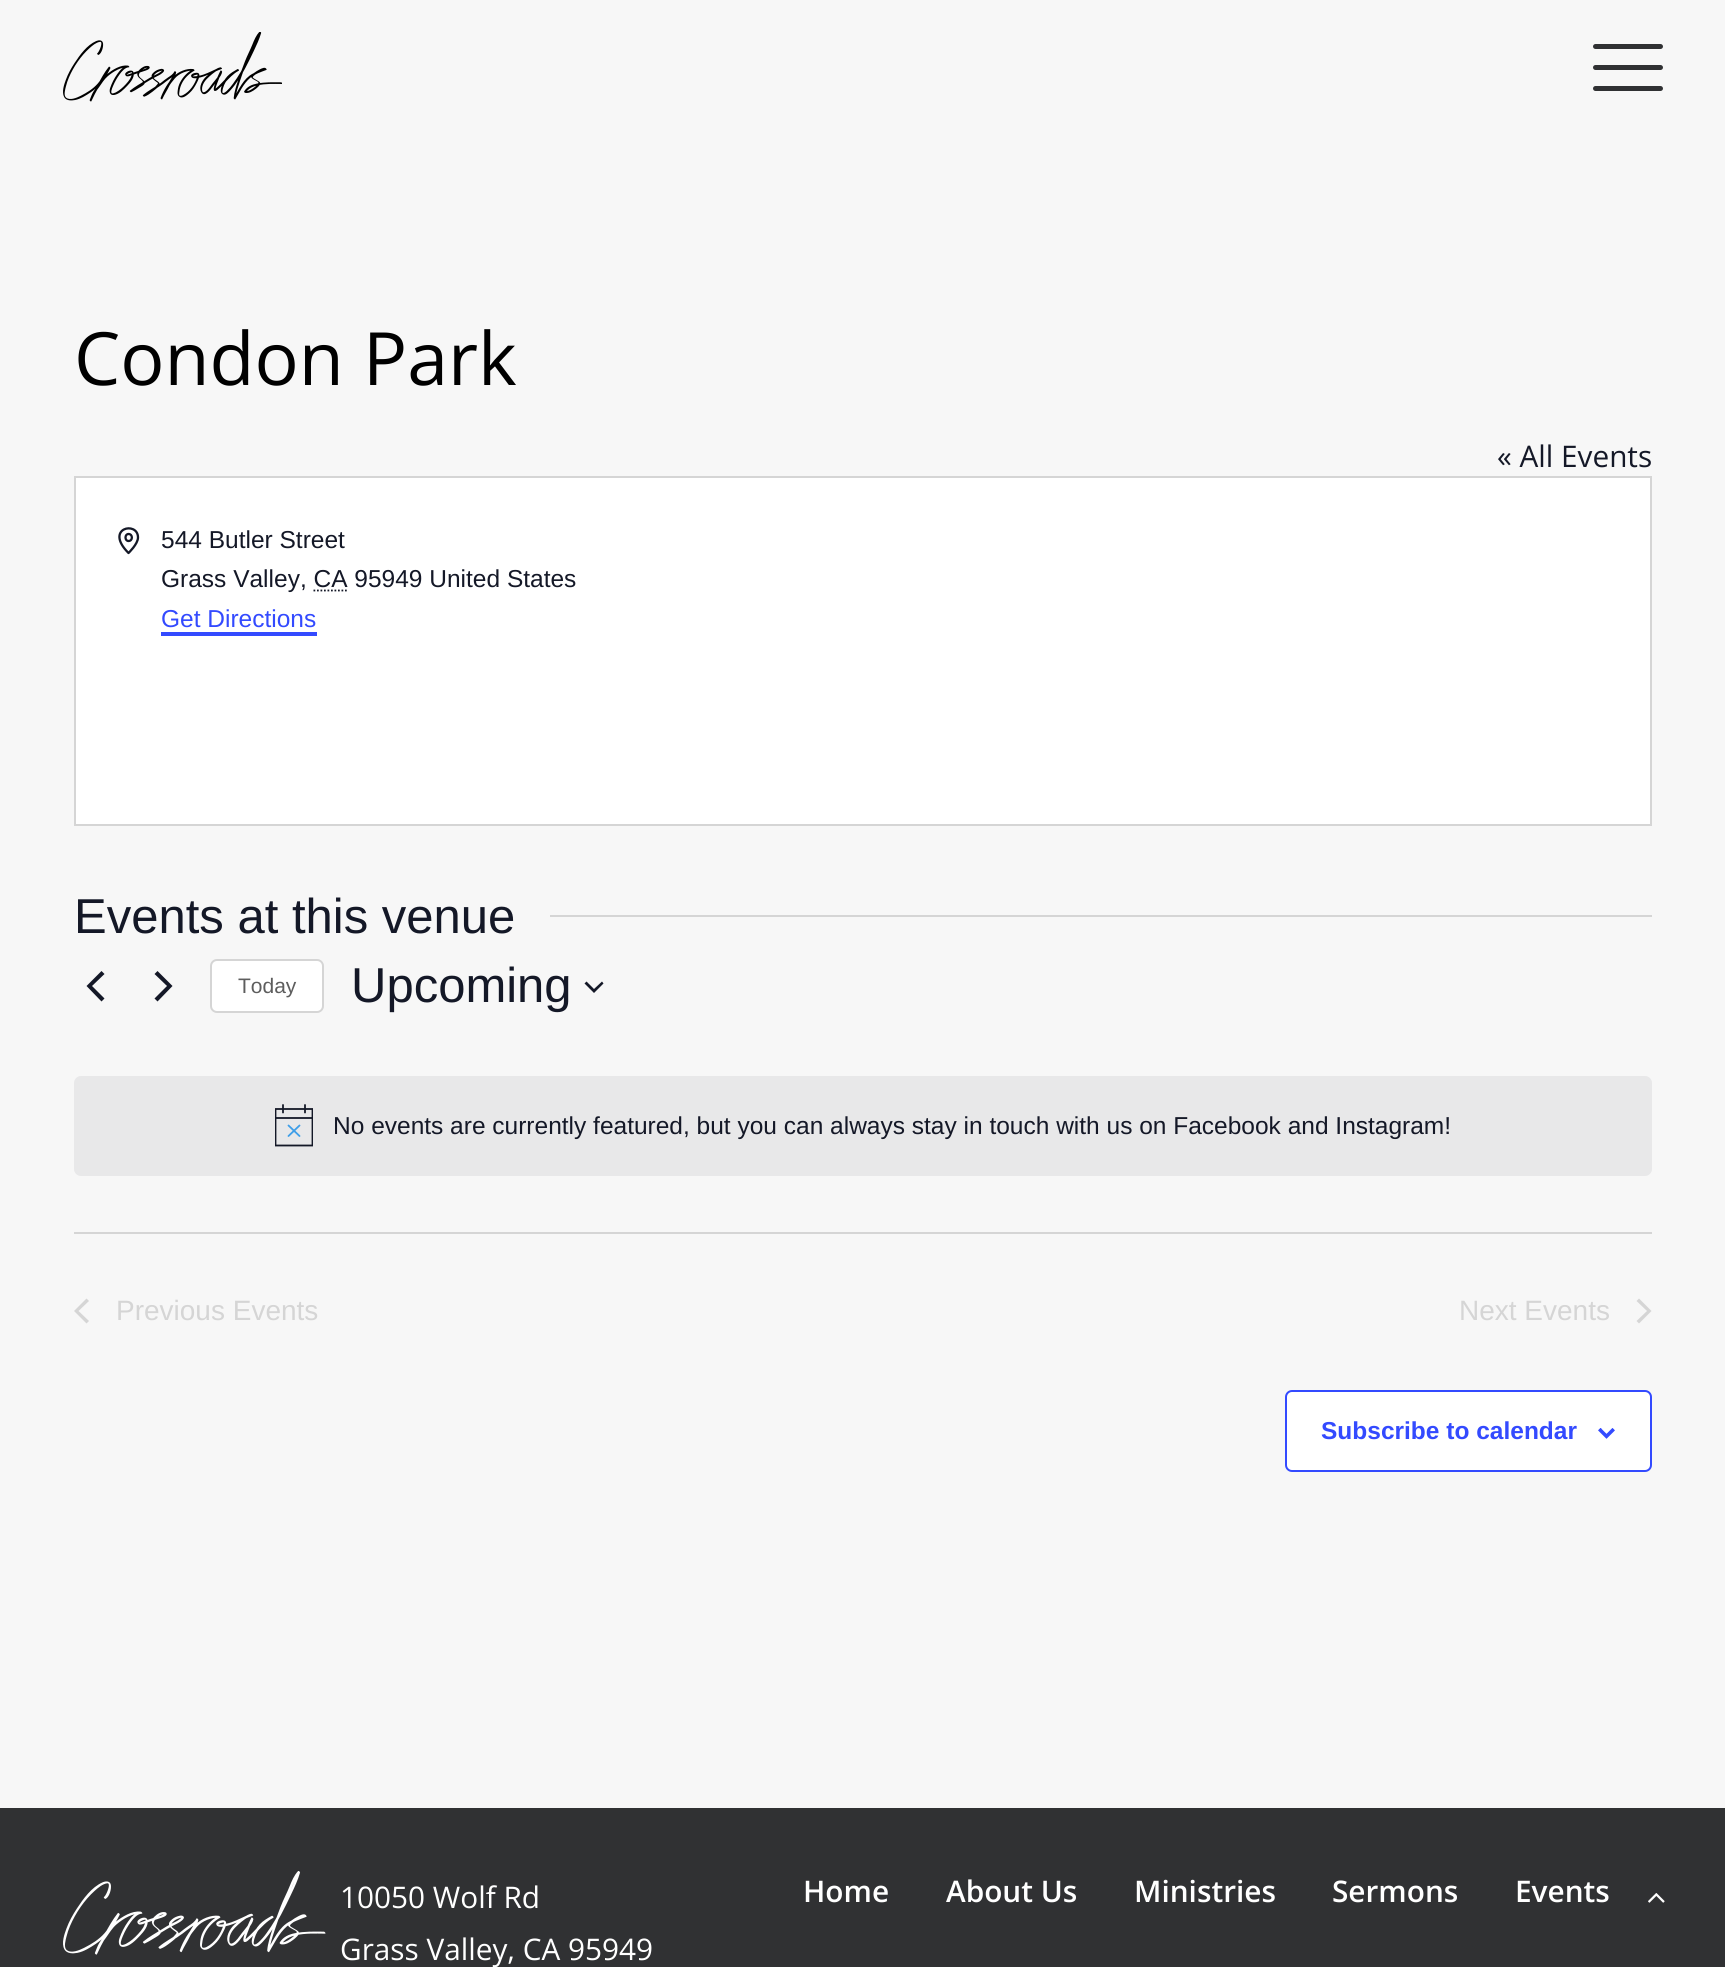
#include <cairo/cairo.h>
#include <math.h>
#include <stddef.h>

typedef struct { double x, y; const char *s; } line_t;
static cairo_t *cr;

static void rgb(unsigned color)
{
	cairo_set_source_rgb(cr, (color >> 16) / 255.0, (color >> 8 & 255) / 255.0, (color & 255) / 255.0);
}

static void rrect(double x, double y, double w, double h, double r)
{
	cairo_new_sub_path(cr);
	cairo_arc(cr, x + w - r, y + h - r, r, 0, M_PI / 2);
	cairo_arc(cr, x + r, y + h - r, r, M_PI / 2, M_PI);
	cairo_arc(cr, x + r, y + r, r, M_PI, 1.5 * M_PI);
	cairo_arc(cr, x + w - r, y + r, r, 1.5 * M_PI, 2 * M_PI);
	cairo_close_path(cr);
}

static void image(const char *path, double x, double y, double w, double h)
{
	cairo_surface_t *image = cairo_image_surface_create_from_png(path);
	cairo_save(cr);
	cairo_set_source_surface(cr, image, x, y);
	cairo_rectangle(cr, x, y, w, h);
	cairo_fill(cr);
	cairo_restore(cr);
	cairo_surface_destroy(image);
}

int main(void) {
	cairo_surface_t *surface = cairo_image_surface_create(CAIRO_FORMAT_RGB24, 1725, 1967);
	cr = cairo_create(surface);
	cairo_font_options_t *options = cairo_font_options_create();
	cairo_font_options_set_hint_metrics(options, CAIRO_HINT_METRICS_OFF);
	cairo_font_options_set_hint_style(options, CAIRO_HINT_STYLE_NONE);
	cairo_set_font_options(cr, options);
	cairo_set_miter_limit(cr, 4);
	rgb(0xf7f7f7);
	cairo_paint(cr);
	image("img/1.png", 63, 32, 219, 70);
	rgb(0x303133);
	rrect(1593, 65, 70, 5, 2.5);
	cairo_fill(cr);
	rrect(1593, 44, 70, 5, 2.5);
	cairo_fill(cr);
	rrect(1593, 86, 70, 5, 2.5);
	cairo_fill(cr);
	rgb(0xffffff);
	cairo_rectangle(cr, 75, 477, 1576, 348);
	cairo_fill_preserve(cr);
	rgb(0xd5d5d5);
	cairo_stroke(cr);
	cairo_new_path(cr);
	cairo_move_to(cr, 138, 537.5);
	cairo_curve_to(cr, 138, 544, 128.5, 553, 128.5, 553);
	cairo_curve_to(cr, 103.5, 528, 138, 520.5, 138, 537.5);
	cairo_close_path(cr);
	cairo_move_to(cr, 128.5, 541);
	cairo_curve_to(cr, 133, 541, 133, 534, 128.5, 534);
	cairo_curve_to(cr, 124.5, 534, 124.5, 541, 128.5, 541);
	cairo_close_path(cr);
	rgb(0x141827);
	cairo_set_line_width(cr, 2.3);
	cairo_set_line_cap(cr, CAIRO_LINE_CAP_ROUND);
	cairo_set_line_join(cr, CAIRO_LINE_JOIN_ROUND);
	cairo_stroke(cr);
	cairo_new_path(cr);
	cairo_move_to(cr, 313.5, 590.5);
	cairo_line_to(cr, 348, 590.5);
	cairo_set_line_width(cr, 1.8);
	cairo_set_line_cap(cr, CAIRO_LINE_CAP_BUTT);
	cairo_set_line_join(cr, CAIRO_LINE_JOIN_MITER);
	cairo_set_dash(cr, (double[]){1.75, 1.75}, 2, 0);
	cairo_stroke(cr);
	rgb(0x334aff);
	cairo_rectangle(cr, 161, 632, 156, 4);
	cairo_fill(cr);
	rgb(0xd5d5d5);
	cairo_rectangle(cr, 550, 915, 1102, 2);
	cairo_fill(cr);
	rgb(0x141827);
	cairo_new_path(cr);
	cairo_move_to(cr, 104.5, 998.5);
	cairo_line_to(cr, 101.5, 1001.5);
	cairo_line_to(cr, 86.5, 986);
	cairo_line_to(cr, 101.5, 971);
	cairo_line_to(cr, 104.5, 974);
	cairo_line_to(cr, 92, 986);
	cairo_close_path(cr);
	cairo_fill(cr);
	cairo_new_path(cr);
	cairo_move_to(cr, 154.5, 974);
	cairo_line_to(cr, 157.5, 971);
	cairo_line_to(cr, 172.5, 986);
	cairo_line_to(cr, 157.5, 1001.5);
	cairo_line_to(cr, 154.5, 998.5);
	cairo_line_to(cr, 167, 986);
	cairo_close_path(cr);
	cairo_fill(cr);
	rgb(0xffffff);
	rrect(211, 960, 112, 52, 6);
	cairo_fill_preserve(cr);
	rgb(0xd5d5d5);
	cairo_set_line_width(cr, 2);
	cairo_set_dash(cr, NULL, 0, 0);
	cairo_stroke(cr);
	rgb(0x141827);
	cairo_set_fill_rule(cr, CAIRO_FILL_RULE_EVEN_ODD);
	cairo_new_path(cr);
	cairo_move_to(cr, 586.5, 981.5);
	cairo_line_to(cr, 594, 989);
	cairo_line_to(cr, 602, 981.5);
	cairo_line_to(cr, 603.5, 983.5);
	cairo_line_to(cr, 594, 993);
	cairo_line_to(cr, 584.5, 983.5);
	cairo_close_path(cr);
	cairo_fill(cr);
	rgb(0xe8e8e9);
	rrect(74, 1076, 1578, 100, 7);
	cairo_fill(cr);
	cairo_save(cr);
	cairo_set_fill_rule(cr, CAIRO_FILL_RULE_WINDING);
	cairo_rectangle(cr, 275, 1104, 38, 44);
	cairo_clip(cr);
	cairo_new_path(cr);
	cairo_move_to(cr, 275.5, 1109);
	cairo_line_to(cr, 312.5, 1109);
	cairo_line_to(cr, 312.5, 1145.5);
	cairo_line_to(cr, 275.5, 1145.5);
	cairo_close_path(cr);
	rgb(0x141827);
	cairo_set_line_width(cr, 1.8);
	cairo_stroke(cr);
	cairo_restore(cr);
	cairo_new_path(cr);
	cairo_move_to(cr, 288.5, 1125.5);
	cairo_line_to(cr, 299.5, 1136);
	cairo_move_to(cr, 299.5, 1125.5);
	cairo_line_to(cr, 288.5, 1136);
	rgb(0x3e9ee8);
	cairo_set_line_width(cr, 1.8);
	cairo_set_line_cap(cr, CAIRO_LINE_CAP_ROUND);
	cairo_stroke(cr);
	cairo_new_path(cr);
	cairo_move_to(cr, 283, 1105);
	cairo_line_to(cr, 283, 1112.5);
	cairo_move_to(cr, 305, 1105);
	cairo_line_to(cr, 305, 1112.5);
	rgb(0x141827);
	cairo_stroke(cr);
	cairo_set_source_rgba(cr, 0.078, 0.094, 0.153, 0.9);
	cairo_rectangle(cr, 275, 1117, 38, 2);
	cairo_fill(cr);
	rgb(0xd5d5d5);
	cairo_rectangle(cr, 74, 1232, 1578, 2);
	cairo_fill(cr);
	cairo_set_fill_rule(cr, CAIRO_FILL_RULE_WINDING);
	cairo_new_path(cr);
	cairo_move_to(cr, 89, 1321);
	cairo_line_to(cr, 86.5, 1323.5);
	cairo_line_to(cr, 74, 1311);
	cairo_line_to(cr, 86.5, 1298.5);
	cairo_line_to(cr, 89, 1301);
	cairo_line_to(cr, 78.5, 1311);
	cairo_close_path(cr);
	cairo_fill(cr);
	cairo_new_path(cr);
	cairo_move_to(cr, 1636.5, 1301);
	cairo_line_to(cr, 1639, 1298.5);
	cairo_line_to(cr, 1651.5, 1311);
	cairo_line_to(cr, 1639, 1323.5);
	cairo_line_to(cr, 1636.5, 1321);
	cairo_line_to(cr, 1647, 1311);
	cairo_close_path(cr);
	cairo_fill(cr);
	rgb(0xffffff);
	rrect(1286, 1391, 365, 80, 6);
	cairo_fill_preserve(cr);
	rgb(0x334aff);
	cairo_set_line_width(cr, 2);
	cairo_set_line_cap(cr, CAIRO_LINE_CAP_BUTT);
	cairo_stroke(cr);
	image("img/2.png", 1598, 1428, 17, 11);
	rgb(0x303133);
	cairo_rectangle(cr, 0, 1808, 1725, 159);
	cairo_fill(cr);
	image("img/3.png", 63, 1871, 263, 84);
	image("img/4.png", 1648, 1893, 17, 10);
	cairo_select_font_face(cr, "Open Sans", CAIRO_FONT_SLANT_NORMAL, CAIRO_FONT_WEIGHT_NORMAL);
	cairo_set_font_size(cr, 73.5);
	rgb(0x000000);
	cairo_move_to(cr, 74, 385);
	cairo_show_text(cr, "Condon Park");
	cairo_set_font_size(cr, 29.75);
	rgb(0x141827);
	cairo_move_to(cr, 1497, 467);
	cairo_show_text(cr, "« All Events");
	cairo_select_font_face(cr, "Liberation Sans", CAIRO_FONT_SLANT_NORMAL, CAIRO_FONT_WEIGHT_NORMAL);
	cairo_set_font_size(cr, 24.5);
	cairo_move_to(cr, 161, 548);
	cairo_show_text(cr, "544 Butler Street");
	cairo_move_to(cr, 161, 587);
	cairo_show_text(cr, "Grass Valley, CA 95949 United States");
	rgb(0x334aff);
	cairo_move_to(cr, 161, 627);
	cairo_show_text(cr, "Get Directions");
	cairo_set_font_size(cr, 49);
	rgb(0x141827);
	cairo_move_to(cr, 74, 933);
	cairo_show_text(cr, "Events at this venue");
	cairo_set_font_size(cr, 21);
	rgb(0x5d5d5d);
	cairo_move_to(cr, 238, 993);
	cairo_show_text(cr, "Today");
	cairo_set_font_size(cr, 49);
	rgb(0x141827);
	cairo_move_to(cr, 351, 1002);
	cairo_show_text(cr, "Upcoming");
	cairo_set_font_size(cr, 24.5);
	cairo_move_to(cr, 333, 1134);
	cairo_show_text(cr, "No events are currently featured, but you can always stay in touch with us on Facebook and Instagram!");
	cairo_set_font_size(cr, 28);
	rgb(0xd5d5d5);
	cairo_move_to(cr, 116, 1320);
	cairo_show_text(cr, "Previous Events");
	cairo_move_to(cr, 1459, 1320);
	cairo_show_text(cr, "Next Events");
	cairo_select_font_face(cr, "Liberation Sans", CAIRO_FONT_SLANT_NORMAL, CAIRO_FONT_WEIGHT_BOLD);
	cairo_set_font_size(cr, 24.5);
	rgb(0x334aff);
	cairo_move_to(cr, 1321, 1439);
	cairo_show_text(cr, "Subscribe to calendar");
	cairo_select_font_face(cr, "Open Sans", CAIRO_FONT_SLANT_NORMAL, CAIRO_FONT_WEIGHT_NORMAL);
	cairo_set_font_size(cr, 29.75);
	rgb(0xffffff);
	cairo_move_to(cr, 340, 1908);
	cairo_show_text(cr, "10050 Wolf Rd");
	cairo_move_to(cr, 340, 1960);
	cairo_show_text(cr, "Grass Valley, CA 95949");
	cairo_select_font_face(cr, "Open Sans SemiBold", CAIRO_FONT_SLANT_NORMAL, CAIRO_FONT_WEIGHT_NORMAL);
	{
		static const line_t items[] = {
			{803, 1902, "Home"},
			{946, 1902, "About Us"},
			{1134, 1902, "Ministries"},
			{1332, 1902, "Sermons"},
			{1515, 1902, "Events"},
		};
		for (size_t i = 0; i < sizeof items / sizeof *items; i++) {
			cairo_move_to(cr, items[i].x, items[i].y);
			cairo_show_text(cr, items[i].s);
		}
	}
	cairo_surface_write_to_png(surface, "page.png");
	cairo_font_options_destroy(options);
	cairo_destroy(cr);
	cairo_surface_destroy(surface);
	return 0;
}
